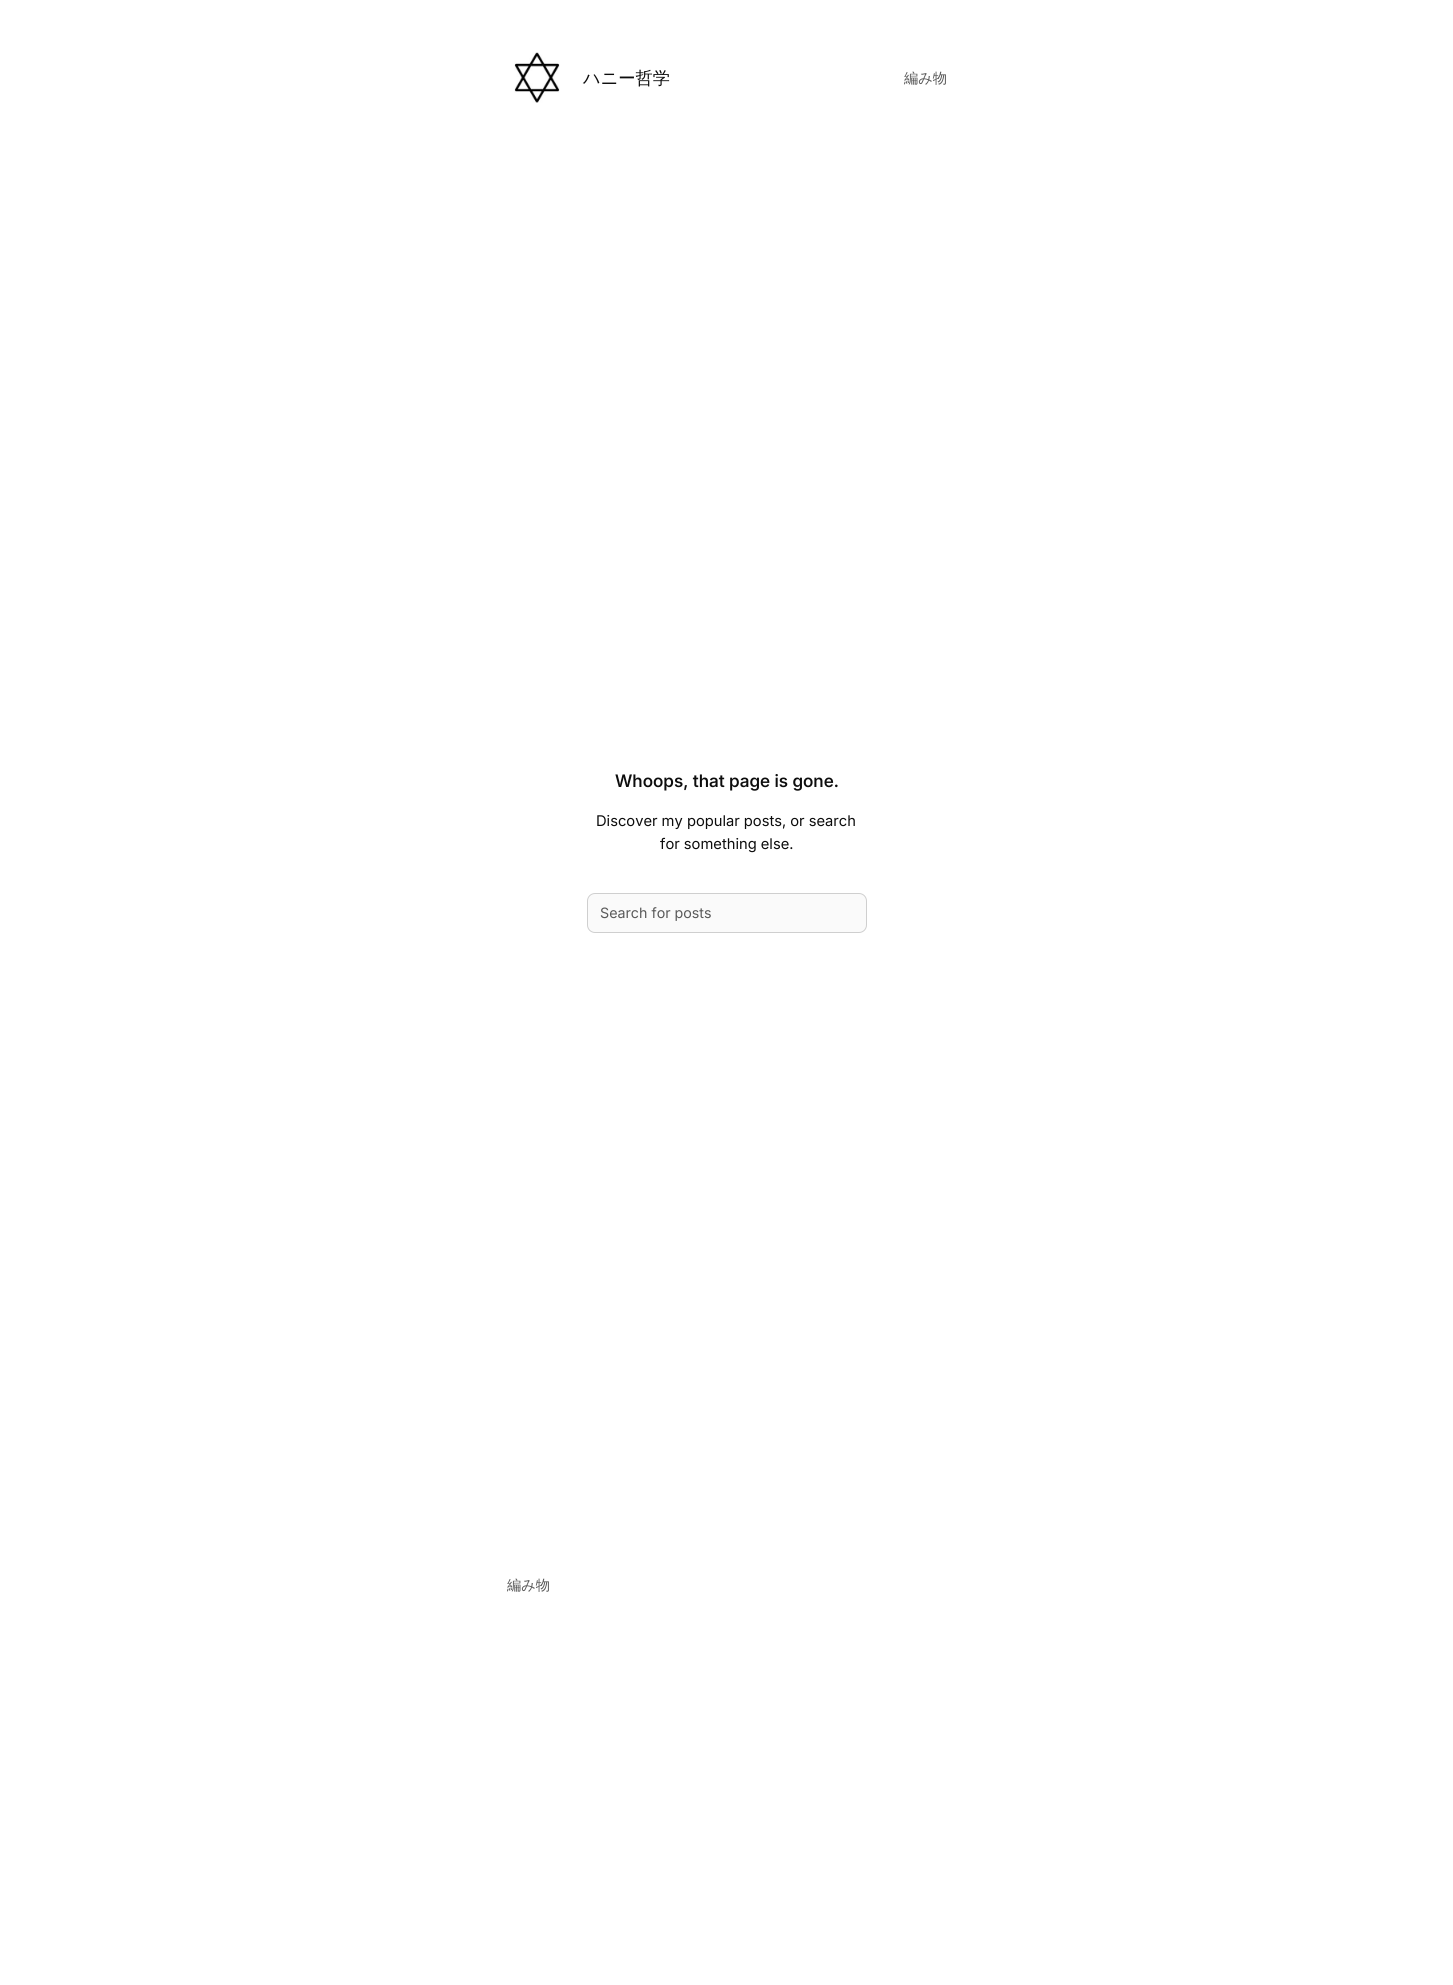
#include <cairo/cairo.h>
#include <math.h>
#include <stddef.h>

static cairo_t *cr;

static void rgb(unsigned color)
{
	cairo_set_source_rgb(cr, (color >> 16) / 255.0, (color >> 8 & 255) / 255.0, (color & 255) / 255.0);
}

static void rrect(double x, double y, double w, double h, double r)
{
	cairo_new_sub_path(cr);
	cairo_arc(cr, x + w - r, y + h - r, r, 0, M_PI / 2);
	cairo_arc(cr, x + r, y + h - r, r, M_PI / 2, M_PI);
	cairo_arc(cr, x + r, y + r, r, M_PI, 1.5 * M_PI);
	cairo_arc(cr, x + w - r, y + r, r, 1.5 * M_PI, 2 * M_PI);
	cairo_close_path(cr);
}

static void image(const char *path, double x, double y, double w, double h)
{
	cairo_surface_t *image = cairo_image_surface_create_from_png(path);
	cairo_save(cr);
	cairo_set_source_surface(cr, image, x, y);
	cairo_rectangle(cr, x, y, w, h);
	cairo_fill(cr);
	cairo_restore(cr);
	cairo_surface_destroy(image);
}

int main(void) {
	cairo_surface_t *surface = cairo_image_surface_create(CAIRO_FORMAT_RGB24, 1453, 1985);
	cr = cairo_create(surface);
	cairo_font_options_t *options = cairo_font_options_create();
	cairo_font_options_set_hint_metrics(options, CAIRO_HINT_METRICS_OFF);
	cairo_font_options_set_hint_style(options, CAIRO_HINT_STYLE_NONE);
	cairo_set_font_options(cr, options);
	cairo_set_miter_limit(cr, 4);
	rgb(0xffffff);
	cairo_paint(cr);
	image("img/1.png", 514, 52, 46, 51);
	rgb(0xfafafa);
	rrect(587.5, 893.5, 279, 39, 7.5);
	cairo_fill_preserve(cr);
	rgb(0xcfcfcf);
	cairo_set_line_width(cr, 1);
	cairo_stroke(cr);
	cairo_select_font_face(cr, "WenQuanYi Zen Hei Medium", CAIRO_FONT_SLANT_NORMAL, CAIRO_FONT_WEIGHT_NORMAL);
	cairo_set_font_size(cr, 17.25);
	rgb(0x0d0d0d);
	cairo_move_to(cr, 583, 84);
	cairo_show_text(cr, "ハニー哲学");
	cairo_set_font_size(cr, 14.25);
	rgb(0x5a5a5a);
	cairo_move_to(cr, 904, 83);
	cairo_show_text(cr, "編み物");
	cairo_select_font_face(cr, "Inter Medium", CAIRO_FONT_SLANT_NORMAL, CAIRO_FONT_WEIGHT_NORMAL);
	cairo_set_font_size(cr, 17.25);
	rgb(0x0d0d0d);
	cairo_move_to(cr, 615, 787);
	cairo_show_text(cr, "Whoops, that page is gone.");
	cairo_select_font_face(cr, "Inter", CAIRO_FONT_SLANT_NORMAL, CAIRO_FONT_WEIGHT_NORMAL);
	cairo_set_font_size(cr, 14.75);
	cairo_move_to(cr, 596, 826);
	cairo_show_text(cr, "Discover my popular posts, or search");
	cairo_move_to(cr, 660, 849);
	cairo_show_text(cr, "for something else.");
	cairo_select_font_face(cr, "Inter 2", CAIRO_FONT_SLANT_NORMAL, CAIRO_FONT_WEIGHT_NORMAL);
	cairo_set_font_size(cr, 14.25);
	rgb(0x5a5a5a);
	cairo_move_to(cr, 600, 918);
	cairo_show_text(cr, "Search for posts");
	cairo_select_font_face(cr, "WenQuanYi Zen Hei Medium", CAIRO_FONT_SLANT_NORMAL, CAIRO_FONT_WEIGHT_NORMAL);
	cairo_move_to(cr, 507, 1590);
	cairo_show_text(cr, "編み物");
	cairo_surface_write_to_png(surface, "page.png");
	cairo_font_options_destroy(options);
	cairo_destroy(cr);
	cairo_surface_destroy(surface);
	return 0;
}
